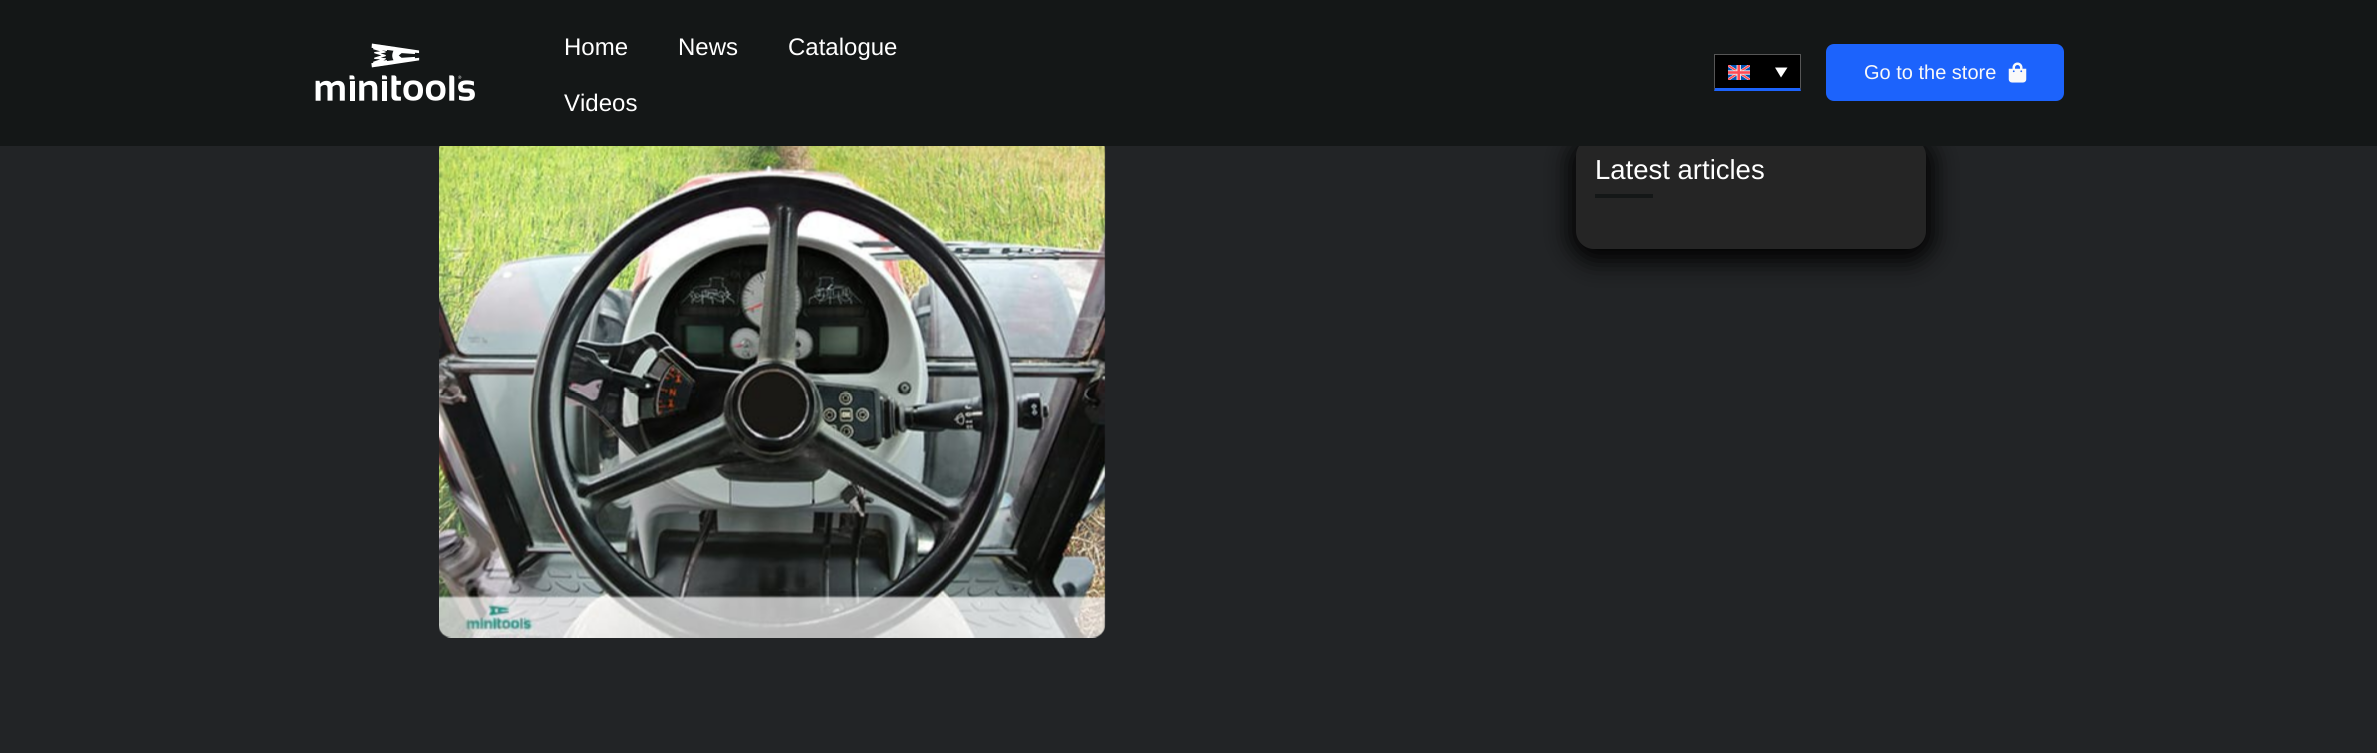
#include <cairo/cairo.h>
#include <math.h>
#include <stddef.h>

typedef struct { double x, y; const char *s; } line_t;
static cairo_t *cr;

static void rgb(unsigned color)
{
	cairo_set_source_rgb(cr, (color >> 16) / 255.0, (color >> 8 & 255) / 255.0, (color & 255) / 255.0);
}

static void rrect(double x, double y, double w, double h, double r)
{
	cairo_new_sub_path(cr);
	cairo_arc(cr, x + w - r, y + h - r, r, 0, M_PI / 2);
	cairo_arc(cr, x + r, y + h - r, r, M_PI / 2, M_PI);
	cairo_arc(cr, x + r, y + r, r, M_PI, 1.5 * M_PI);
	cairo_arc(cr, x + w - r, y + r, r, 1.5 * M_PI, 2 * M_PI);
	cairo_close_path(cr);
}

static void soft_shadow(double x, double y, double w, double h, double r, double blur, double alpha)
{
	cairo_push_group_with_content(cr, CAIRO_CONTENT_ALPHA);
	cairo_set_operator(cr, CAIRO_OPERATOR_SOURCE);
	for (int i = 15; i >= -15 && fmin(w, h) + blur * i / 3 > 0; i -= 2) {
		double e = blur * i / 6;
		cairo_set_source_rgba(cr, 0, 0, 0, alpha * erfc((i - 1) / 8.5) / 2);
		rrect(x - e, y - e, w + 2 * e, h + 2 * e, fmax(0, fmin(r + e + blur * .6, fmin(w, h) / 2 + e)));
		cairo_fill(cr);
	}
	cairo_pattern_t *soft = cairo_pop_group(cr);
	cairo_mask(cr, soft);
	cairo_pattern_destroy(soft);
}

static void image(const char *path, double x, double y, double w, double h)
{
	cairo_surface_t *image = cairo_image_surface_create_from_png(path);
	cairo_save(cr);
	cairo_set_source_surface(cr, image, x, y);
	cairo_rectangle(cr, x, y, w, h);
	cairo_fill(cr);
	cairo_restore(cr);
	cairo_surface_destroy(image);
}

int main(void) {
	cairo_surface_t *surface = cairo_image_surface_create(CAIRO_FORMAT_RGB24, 2377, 753);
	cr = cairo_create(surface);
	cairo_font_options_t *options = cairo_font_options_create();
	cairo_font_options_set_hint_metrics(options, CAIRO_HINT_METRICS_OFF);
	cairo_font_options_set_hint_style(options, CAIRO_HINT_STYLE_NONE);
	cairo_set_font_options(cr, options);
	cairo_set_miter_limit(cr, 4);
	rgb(0x222426);
	cairo_paint(cr);
	rgb(0x000000);
	soft_shadow(1570, 138, 363, 123, 24, 12.5, 1);
	rgb(0x252525);
	rrect(1576, 138, 350, 111, 18);
	cairo_fill(cr);
	rgb(0x141717);
	cairo_rectangle(cr, 0, 0, 2377, 146);
	cairo_fill(cr);
	image("img/1.png", 315, 43, 160, 58);
	rgb(0x000000);
	cairo_rectangle(cr, 1715, 55, 85, 33);
	cairo_fill(cr);
	rgb(0x565656);
	cairo_rectangle(cr, 1714, 54, 87, 1);
	cairo_fill(cr);
	cairo_new_path(cr);
	cairo_move_to(cr, 1801, 54);
	cairo_line_to(cr, 1801, 91);
	cairo_line_to(cr, 1800, 87.5);
	cairo_line_to(cr, 1800, 55);
	cairo_close_path(cr);
	cairo_fill(cr);
	rgb(0x1c63fc);
	cairo_new_path(cr);
	cairo_move_to(cr, 1801, 91);
	cairo_line_to(cr, 1714, 91);
	cairo_line_to(cr, 1715, 88);
	cairo_line_to(cr, 1800, 88);
	cairo_close_path(cr);
	cairo_fill(cr);
	rgb(0x565656);
	cairo_new_path(cr);
	cairo_move_to(cr, 1714, 91);
	cairo_line_to(cr, 1714, 54);
	cairo_line_to(cr, 1715, 55);
	cairo_line_to(cr, 1715, 87.5);
	cairo_close_path(cr);
	cairo_fill(cr);
	image("img/2.png", 1728, 65, 22, 15);
	rgb(0xffffff);
	cairo_new_path(cr);
	cairo_move_to(cr, 1775, 67.5);
	cairo_line_to(cr, 1787.5, 67.5);
	cairo_line_to(cr, 1781, 77.5);
	cairo_close_path(cr);
	cairo_fill(cr);
	rgb(0x1c63fc);
	rrect(1826, 44, 238, 57, 8);
	cairo_fill(cr);
	image("img/3.png", 2008, 62, 19, 21);
	image("img/4.png", 439, 146, 667, 492);
	rgb(0x141717);
	cairo_rectangle(cr, 1595, 194, 58, 4);
	cairo_fill(cr);
	cairo_select_font_face(cr, "Liberation Sans", CAIRO_FONT_SLANT_NORMAL, CAIRO_FONT_WEIGHT_NORMAL);
	cairo_set_font_size(cr, 24);
	rgb(0xffffff);
	{
		static const line_t items[] = {
			{564, 55, "Home"},
			{678, 55, "News"},
			{788, 55, "Catalogue"},
			{564, 111, "Videos"},
		};
		for (size_t i = 0; i < sizeof items / sizeof *items; i++) {
			cairo_move_to(cr, items[i].x, items[i].y);
			cairo_show_text(cr, items[i].s);
		}
	}
	cairo_set_font_size(cr, 20);
	rgb(0xf9f9f9);
	cairo_move_to(cr, 1864, 79);
	cairo_show_text(cr, "Go to the store");
	cairo_set_font_size(cr, 27.5);
	rgb(0xffffff);
	cairo_move_to(cr, 1595, 179);
	cairo_show_text(cr, "Latest articles");
	cairo_surface_write_to_png(surface, "page.png");
	cairo_font_options_destroy(options);
	cairo_destroy(cr);
	cairo_surface_destroy(surface);
	return 0;
}
